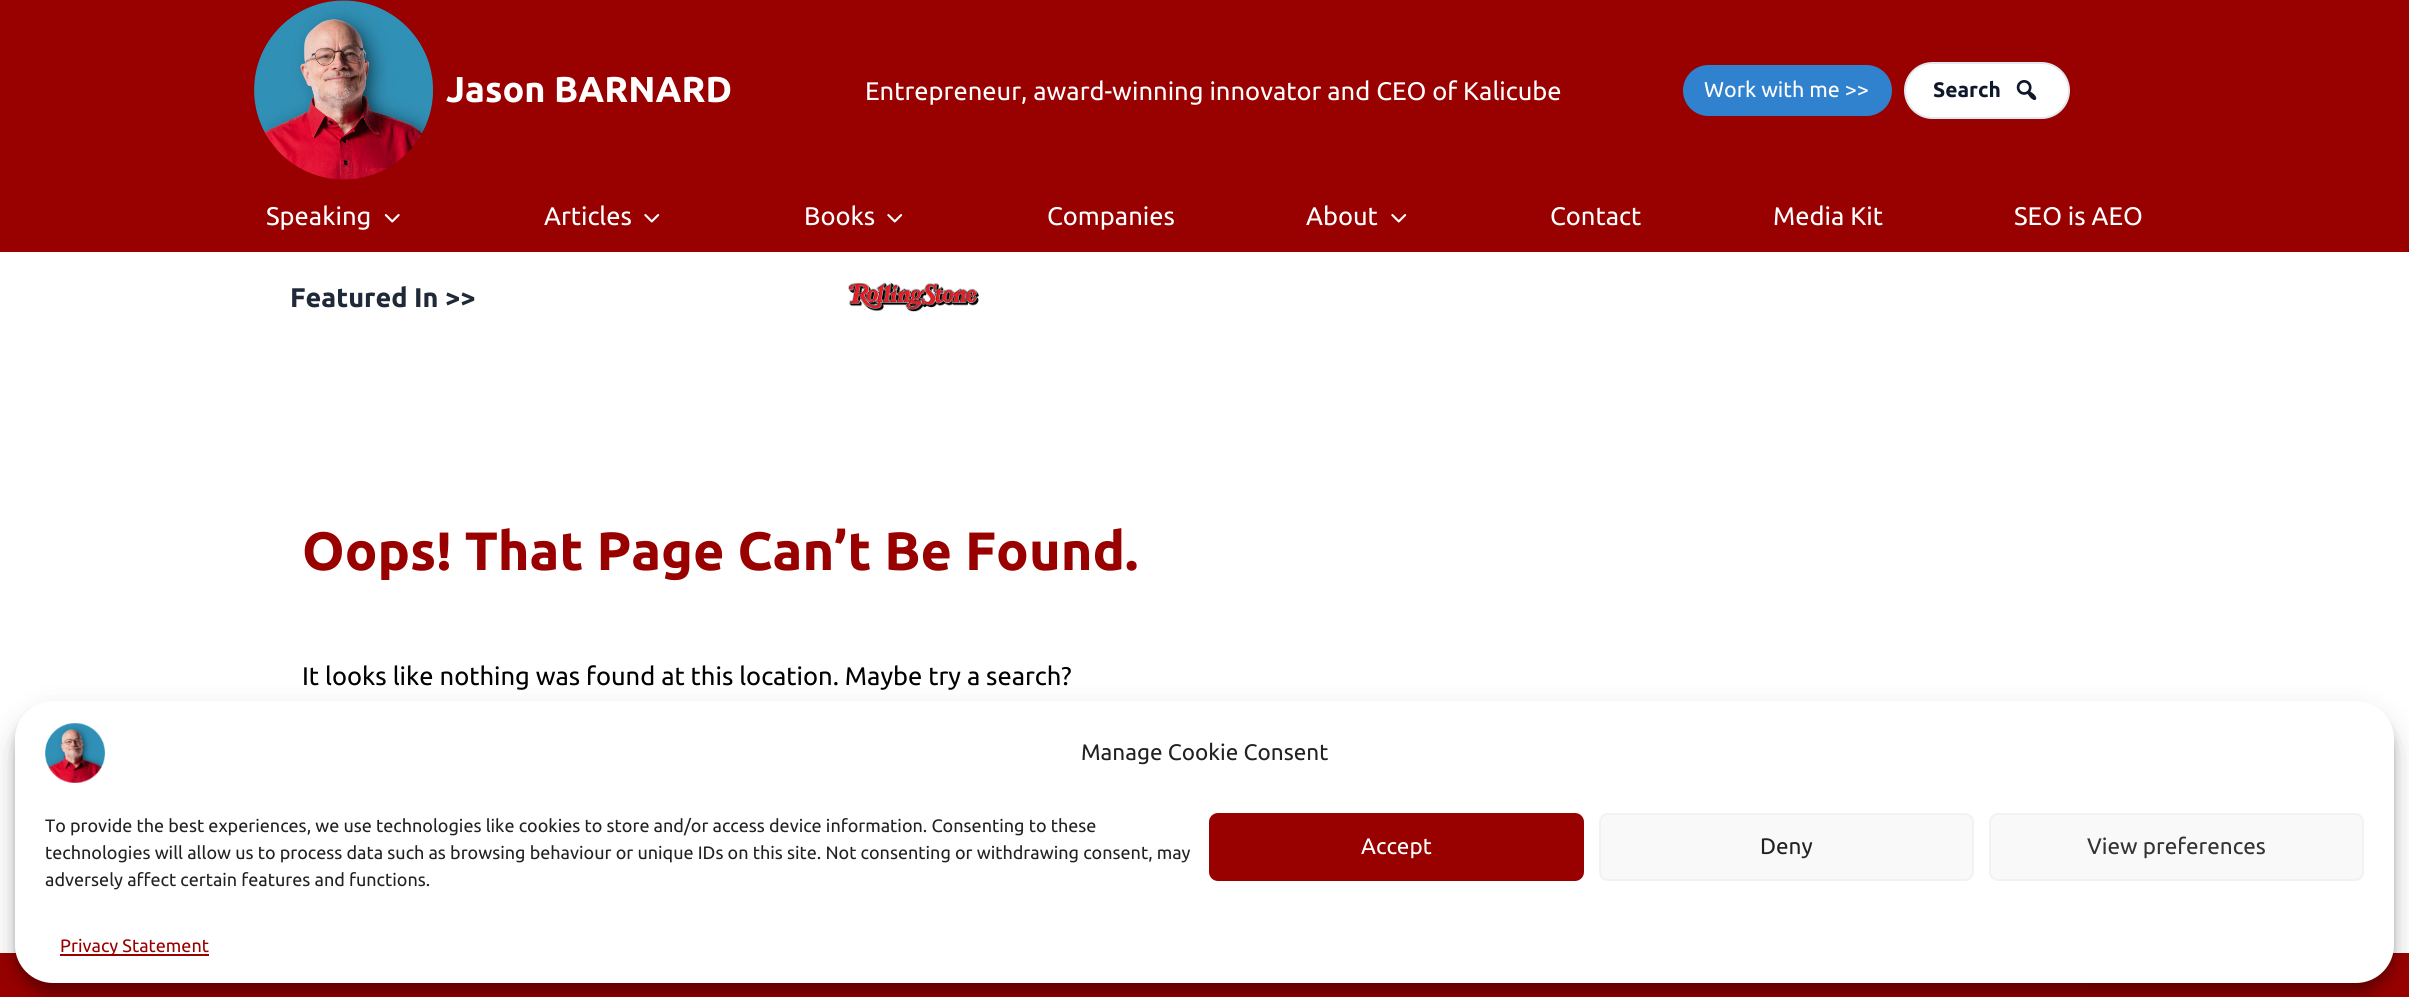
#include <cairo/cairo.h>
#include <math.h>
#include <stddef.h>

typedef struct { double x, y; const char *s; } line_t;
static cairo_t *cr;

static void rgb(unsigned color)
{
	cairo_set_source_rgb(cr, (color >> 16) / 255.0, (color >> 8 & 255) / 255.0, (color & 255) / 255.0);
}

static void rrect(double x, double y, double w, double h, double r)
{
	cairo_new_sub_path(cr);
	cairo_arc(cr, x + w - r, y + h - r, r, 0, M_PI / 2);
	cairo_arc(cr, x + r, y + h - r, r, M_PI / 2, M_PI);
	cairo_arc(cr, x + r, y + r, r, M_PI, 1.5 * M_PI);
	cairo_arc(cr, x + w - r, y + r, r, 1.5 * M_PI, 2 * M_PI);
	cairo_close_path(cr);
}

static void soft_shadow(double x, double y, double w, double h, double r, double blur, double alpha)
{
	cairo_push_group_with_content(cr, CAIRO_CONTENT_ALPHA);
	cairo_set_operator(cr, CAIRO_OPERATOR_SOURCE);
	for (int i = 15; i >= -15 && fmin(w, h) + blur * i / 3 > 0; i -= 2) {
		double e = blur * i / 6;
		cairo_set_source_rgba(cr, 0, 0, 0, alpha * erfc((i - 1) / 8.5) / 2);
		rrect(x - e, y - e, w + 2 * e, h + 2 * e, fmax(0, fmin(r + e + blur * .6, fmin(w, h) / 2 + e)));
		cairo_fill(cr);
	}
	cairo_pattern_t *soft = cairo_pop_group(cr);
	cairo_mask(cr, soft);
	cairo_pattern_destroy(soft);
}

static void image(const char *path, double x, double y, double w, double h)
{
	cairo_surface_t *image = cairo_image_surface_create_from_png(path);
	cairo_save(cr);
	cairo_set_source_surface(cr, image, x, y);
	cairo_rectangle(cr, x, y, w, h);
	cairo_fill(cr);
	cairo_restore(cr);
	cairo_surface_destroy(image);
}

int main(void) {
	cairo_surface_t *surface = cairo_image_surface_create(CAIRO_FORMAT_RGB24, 2409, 997);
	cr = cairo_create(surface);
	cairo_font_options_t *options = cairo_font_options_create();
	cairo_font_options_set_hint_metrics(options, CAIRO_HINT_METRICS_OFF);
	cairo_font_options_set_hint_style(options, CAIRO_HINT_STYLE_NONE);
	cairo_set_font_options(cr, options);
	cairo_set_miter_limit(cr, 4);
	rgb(0xffffff);
	cairo_paint(cr);
	rgb(0x990000);
	cairo_rectangle(cr, 0, 0, 2409, 252);
	cairo_fill(cr);
	image("img/1.png", 254, 0, 179, 180);
	rgb(0x3182ce);
	rrect(1683, 65, 209, 51, 25.5);
	cairo_fill(cr);
	rgb(0xffffff);
	rrect(1905, 63, 164, 55, 27.5);
	cairo_fill_preserve(cr);
	rgb(0xe2e8f0);
	cairo_stroke(cr);
	image("img/2.png", 2016, 80, 21, 20);
	image("img/3.png", 384, 214, 16, 9);
	image("img/4.png", 644, 214, 16, 9);
	image("img/4.png", 887, 214, 16, 9);
	image("img/4.png", 1391, 214, 16, 9);
	image("img/5.png", 848, 282, 131, 30);
	rgb(0x990000);
	cairo_rectangle(cr, 0, 953, 2409, 44);
	cairo_fill(cr);
	rgb(0x000000);
	soft_shadow(15, 710, 2379, 282, 38, 4.5, 0.23);
	soft_shadow(15, 716, 2379, 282, 38, 15, 0.19);
	soft_shadow(2066, 905, 193, 69, 34.5, 9, 0.15);
	rgb(0xffffff);
	rrect(15, 701, 2379, 282, 38);
	cairo_fill(cr);
	image("img/6.png", 45, 723, 60, 60);
	rgb(0x990000);
	rrect(1210, 814, 373, 66, 8);
	cairo_fill_preserve(cr);
	cairo_stroke(cr);
	rgb(0xf9f9f9);
	rrect(1600, 814, 373, 66, 8);
	cairo_fill_preserve(cr);
	rgb(0xf2f2f2);
	cairo_stroke(cr);
	rgb(0xf9f9f9);
	rrect(1990, 814, 373, 66, 8);
	cairo_fill_preserve(cr);
	rgb(0xf2f2f2);
	cairo_stroke(cr);
	rgb(0x990000);
	cairo_rectangle(cr, 60, 954, 149, 2);
	cairo_fill(cr);
	cairo_select_font_face(cr, "Ubuntu", CAIRO_FONT_SLANT_NORMAL, CAIRO_FONT_WEIGHT_BOLD);
	cairo_set_font_size(cr, 36);
	rgb(0xffffff);
	cairo_move_to(cr, 446, 102);
	cairo_show_text(cr, "Jason BARNARD");
	cairo_select_font_face(cr, "Ubuntu", CAIRO_FONT_SLANT_NORMAL, CAIRO_FONT_WEIGHT_NORMAL);
	cairo_set_font_size(cr, 25.5);
	cairo_move_to(cr, 865, 100);
	cairo_show_text(cr, "Entrepreneur, award-winning innovator and CEO of Kalicube");
	cairo_set_font_size(cr, 21.5);
	cairo_move_to(cr, 1704, 97);
	cairo_show_text(cr, "Work with me >>");
	cairo_select_font_face(cr, "Ubuntu", CAIRO_FONT_SLANT_NORMAL, CAIRO_FONT_WEIGHT_BOLD);
	cairo_set_font_size(cr, 21);
	rgb(0x0f172a);
	cairo_move_to(cr, 1933, 97);
	cairo_show_text(cr, "Search");
	cairo_select_font_face(cr, "Ubuntu", CAIRO_FONT_SLANT_NORMAL, CAIRO_FONT_WEIGHT_NORMAL);
	cairo_set_font_size(cr, 25.5);
	rgb(0xffffff);
	{
		static const line_t items[] = {
			{266, 225, "Speaking"},
			{544, 225, "Articles"},
			{804, 225, "Books"},
			{1047, 225, "Companies"},
			{1306, 225, "About"},
			{1550, 225, "Contact"},
			{1773, 225, "Media Kit"},
			{2014, 225, "SEO is AEO"},
		};
		for (size_t i = 0; i < sizeof items / sizeof *items; i++) {
			cairo_move_to(cr, items[i].x, items[i].y);
			cairo_show_text(cr, items[i].s);
		}
	}
	cairo_select_font_face(cr, "Ubuntu", CAIRO_FONT_SLANT_NORMAL, CAIRO_FONT_WEIGHT_BOLD);
	cairo_set_font_size(cr, 27);
	rgb(0x1f2937);
	cairo_move_to(cr, 290, 307);
	cairo_show_text(cr, "Featured In >>");
	cairo_set_font_size(cr, 54);
	rgb(0x990000);
	cairo_move_to(cr, 302, 570);
	cairo_show_text(cr, "Oops! That Page Can’t Be Found.");
	cairo_select_font_face(cr, "Ubuntu", CAIRO_FONT_SLANT_NORMAL, CAIRO_FONT_WEIGHT_NORMAL);
	cairo_set_font_size(cr, 25.5);
	rgb(0x000000);
	cairo_move_to(cr, 302, 685);
	cairo_show_text(cr, "It looks like nothing was found at this location. Maybe try a search?");
	cairo_set_font_size(cr, 22.5);
	rgb(0x222222);
	cairo_move_to(cr, 1081, 760);
	cairo_show_text(cr, "Manage Cookie Consent");
	cairo_set_font_size(cr, 18);
	{
		static const line_t items[] = {
			{45, 832, "To provide the best experiences, we use technologies like cookies to store and/or access device information. Consenting to these"},
			{45, 859, "technologies will allow us to process data such as browsing behaviour or unique IDs on this site. Not consenting or withdrawing consent, may"},
			{45, 886, "adversely affect certain features and functions."},
		};
		for (size_t i = 0; i < sizeof items / sizeof *items; i++) {
			cairo_move_to(cr, items[i].x, items[i].y);
			cairo_show_text(cr, items[i].s);
		}
	}
	cairo_set_font_size(cr, 22.5);
	rgb(0xffffff);
	cairo_move_to(cr, 1361, 854);
	cairo_show_text(cr, "Accept");
	rgb(0x222222);
	cairo_move_to(cr, 1760, 854);
	cairo_show_text(cr, "Deny");
	rgb(0x333333);
	cairo_move_to(cr, 2087, 854);
	cairo_show_text(cr, "View preferences");
	cairo_set_font_size(cr, 18);
	rgb(0x990000);
	cairo_move_to(cr, 60, 952);
	cairo_show_text(cr, "Privacy Statement");
	cairo_surface_write_to_png(surface, "page.png");
	cairo_font_options_destroy(options);
	cairo_destroy(cr);
	cairo_surface_destroy(surface);
	return 0;
}
